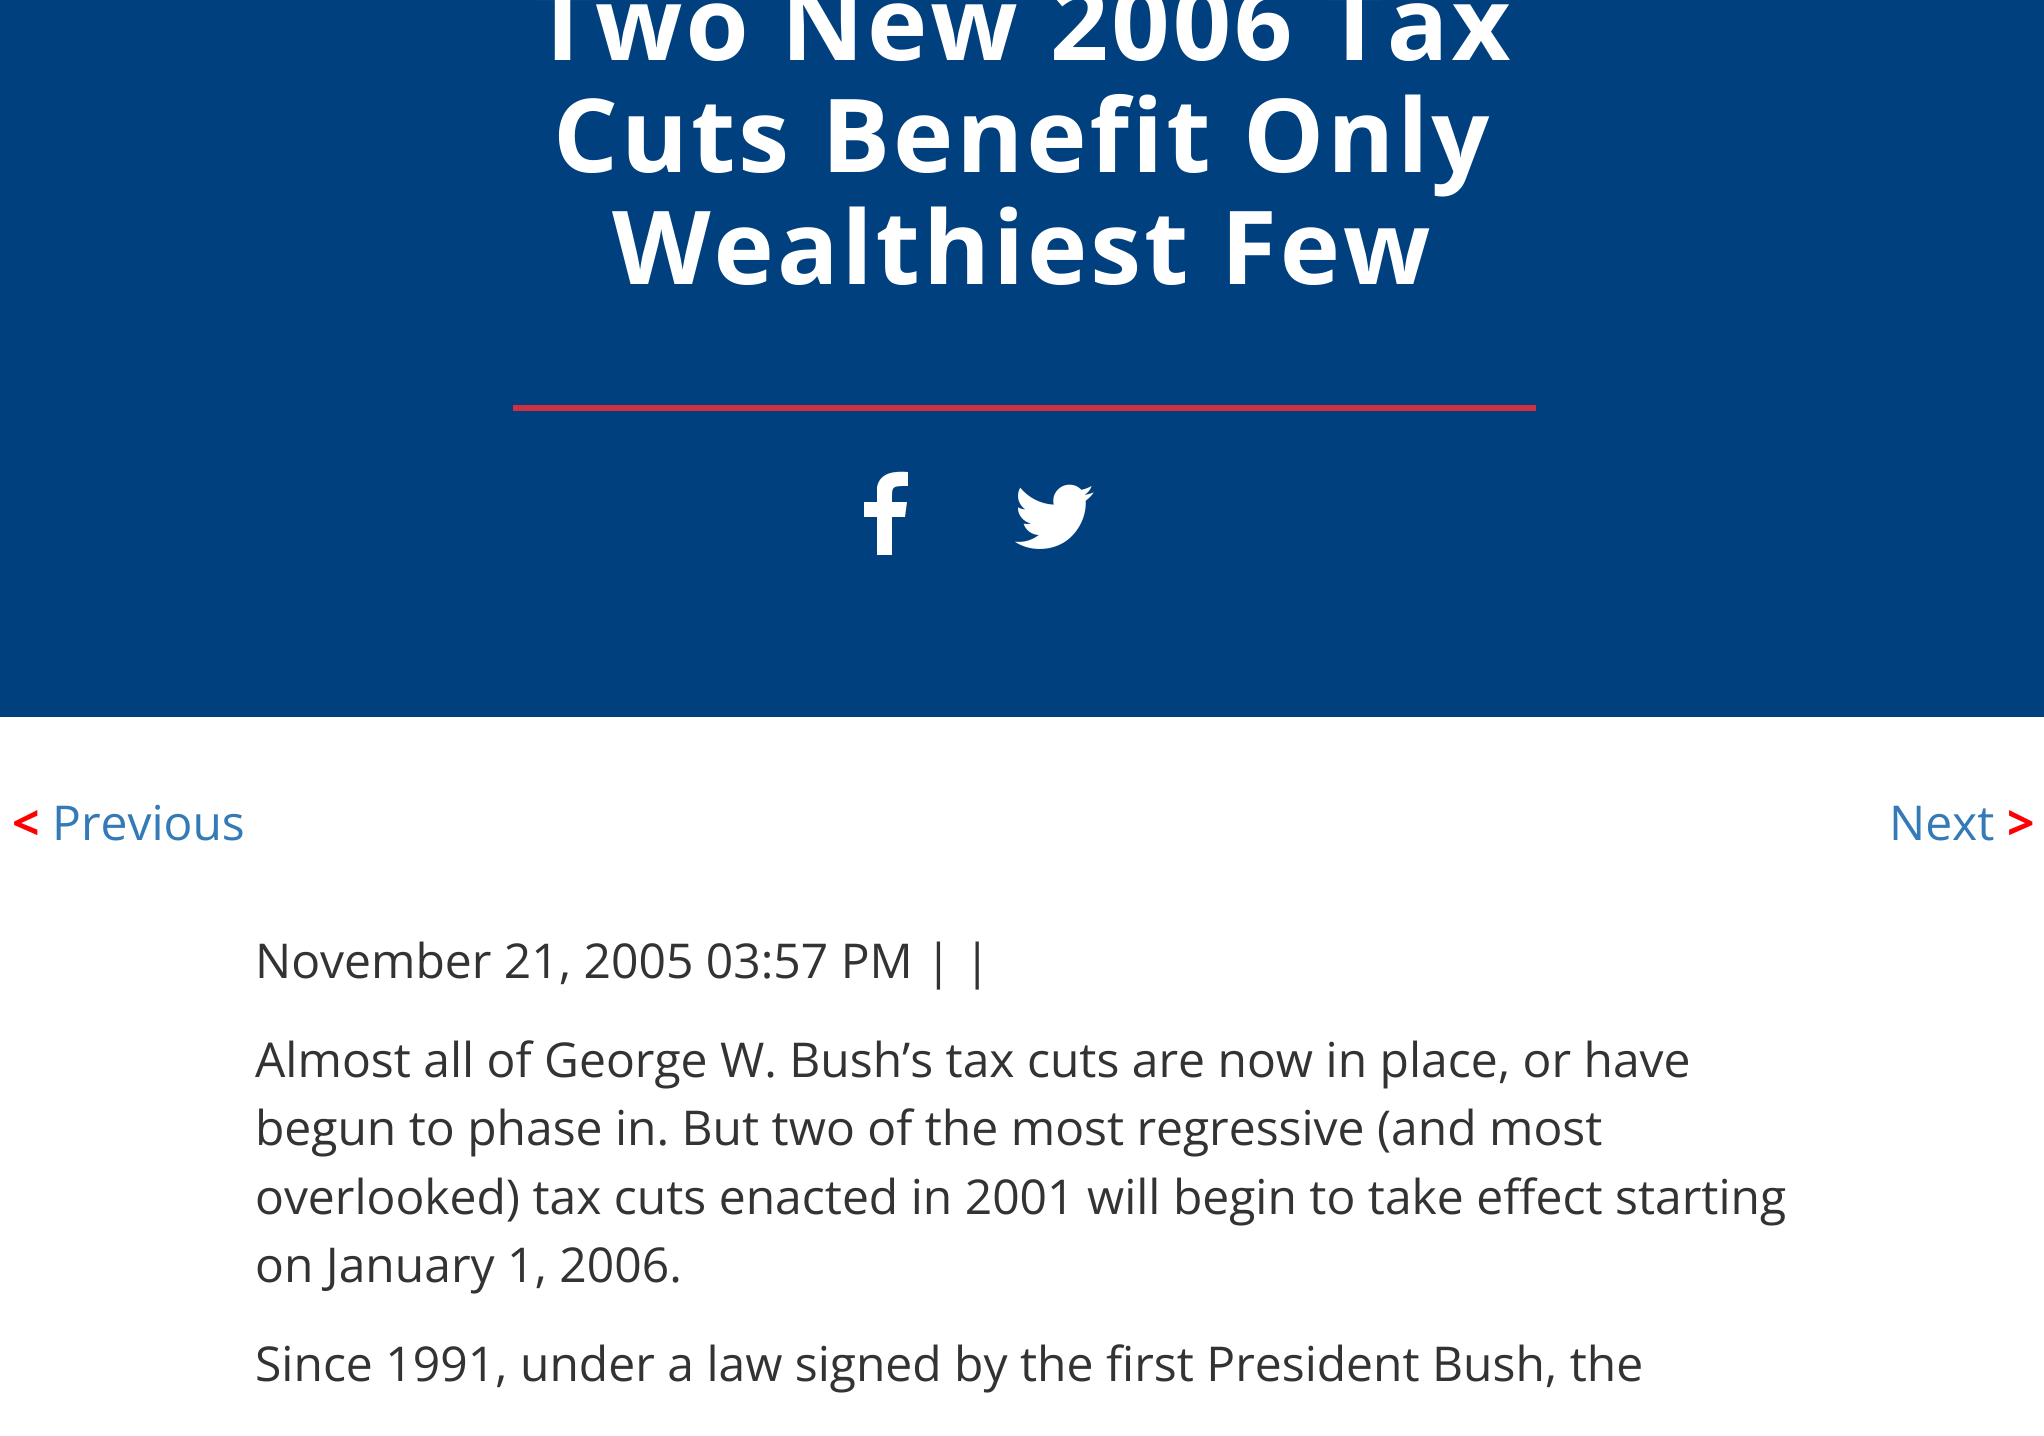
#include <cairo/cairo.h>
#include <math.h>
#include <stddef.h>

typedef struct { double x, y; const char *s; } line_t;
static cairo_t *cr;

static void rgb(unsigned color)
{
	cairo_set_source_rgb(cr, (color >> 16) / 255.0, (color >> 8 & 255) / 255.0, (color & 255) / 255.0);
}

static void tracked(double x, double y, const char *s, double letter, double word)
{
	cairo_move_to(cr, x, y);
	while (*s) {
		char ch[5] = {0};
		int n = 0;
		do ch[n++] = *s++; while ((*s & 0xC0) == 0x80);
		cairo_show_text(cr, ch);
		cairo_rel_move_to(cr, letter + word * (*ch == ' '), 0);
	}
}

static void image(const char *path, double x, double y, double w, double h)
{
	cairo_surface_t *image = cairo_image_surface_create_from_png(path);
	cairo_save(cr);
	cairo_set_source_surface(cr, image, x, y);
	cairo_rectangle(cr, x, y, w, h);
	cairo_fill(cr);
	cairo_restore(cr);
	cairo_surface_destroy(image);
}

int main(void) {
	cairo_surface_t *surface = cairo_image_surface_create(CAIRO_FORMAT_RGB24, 2044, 1436);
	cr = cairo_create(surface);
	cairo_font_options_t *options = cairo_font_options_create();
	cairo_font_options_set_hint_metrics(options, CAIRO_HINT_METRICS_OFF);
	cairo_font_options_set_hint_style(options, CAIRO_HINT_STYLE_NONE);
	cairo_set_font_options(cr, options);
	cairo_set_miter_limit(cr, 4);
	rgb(0xffffff);
	cairo_paint(cr);
	rgb(0x00407e);
	cairo_rectangle(cr, 0, 0, 2044, 717);
	cairo_fill(cr);
	rgb(0xcf3042);
	cairo_rectangle(cr, 513, 405, 1023, 6);
	cairo_fill(cr);
	rgb(0xffffff);
	cairo_new_path(cr);
	cairo_move_to(cr, 908, 472);
	cairo_line_to(cr, 908, 486);
	cairo_curve_to(cr, 891, 486, 892, 486, 892, 502);
	cairo_line_to(cr, 907, 502);
	cairo_line_to(cr, 905, 517);
	cairo_line_to(cr, 892, 517);
	cairo_line_to(cr, 892, 555);
	cairo_line_to(cr, 877, 555);
	cairo_line_to(cr, 877, 517);
	cairo_line_to(cr, 864, 517);
	cairo_line_to(cr, 864, 502);
	cairo_line_to(cr, 877, 502);
	cairo_line_to(cr, 877, 487);
	cairo_curve_to(cr, 880, 472, 895, 471, 908, 472);
	cairo_close_path(cr);
	cairo_fill(cr);
	image("img/1.png", 1015, 484, 79, 65);
	cairo_select_font_face(cr, "Open Sans", CAIRO_FONT_SLANT_NORMAL, CAIRO_FONT_WEIGHT_BOLD);
	cairo_set_font_size(cr, 102);
	{
		static const line_t items[] = {
			{533, 60, "Two New 2006 Tax"},
			{553, 172, "Cuts Benefit Only"},
			{612, 284, "Wealthiest Few"},
		};
		for (size_t i = 0; i < sizeof items / sizeof *items; i++) {
			tracked(items[i].x, items[i].y, items[i].s, 3, 0);
		}
	}
	cairo_set_font_size(cr, 48);
	rgb(0xff0000);
	cairo_move_to(cr, 12, 840);
	cairo_show_text(cr, "<");
	cairo_select_font_face(cr, "Open Sans", CAIRO_FONT_SLANT_NORMAL, CAIRO_FONT_WEIGHT_NORMAL);
	rgb(0x337ab7);
	cairo_move_to(cr, 52, 840);
	cairo_show_text(cr, "Previous");
	cairo_move_to(cr, 1889, 840);
	cairo_show_text(cr, "Next");
	cairo_select_font_face(cr, "Open Sans", CAIRO_FONT_SLANT_NORMAL, CAIRO_FONT_WEIGHT_BOLD);
	rgb(0xff0000);
	cairo_move_to(cr, 2007, 840);
	cairo_show_text(cr, ">");
	cairo_select_font_face(cr, "Open Sans", CAIRO_FONT_SLANT_NORMAL, CAIRO_FONT_WEIGHT_NORMAL);
	rgb(0x333333);
	{
		static const line_t items[] = {
			{255, 978, "November 21, 2005 03:57 PM | |"},
			{255, 1077, "Almost all of George W. Bush’s tax cuts are now in place, or have"},
			{255, 1145, "begun to phase in. But two of the most regressive (and most"},
			{255, 1214, "overlooked) tax cuts enacted in 2001 will begin to take effect starting"},
			{255, 1282, "on January 1, 2006."},
			{255, 1381, "Since 1991, under a law signed by the first President Bush, the"},
		};
		for (size_t i = 0; i < sizeof items / sizeof *items; i++) {
			cairo_move_to(cr, items[i].x, items[i].y);
			cairo_show_text(cr, items[i].s);
		}
	}
	cairo_surface_write_to_png(surface, "page.png");
	cairo_font_options_destroy(options);
	cairo_destroy(cr);
	cairo_surface_destroy(surface);
	return 0;
}
